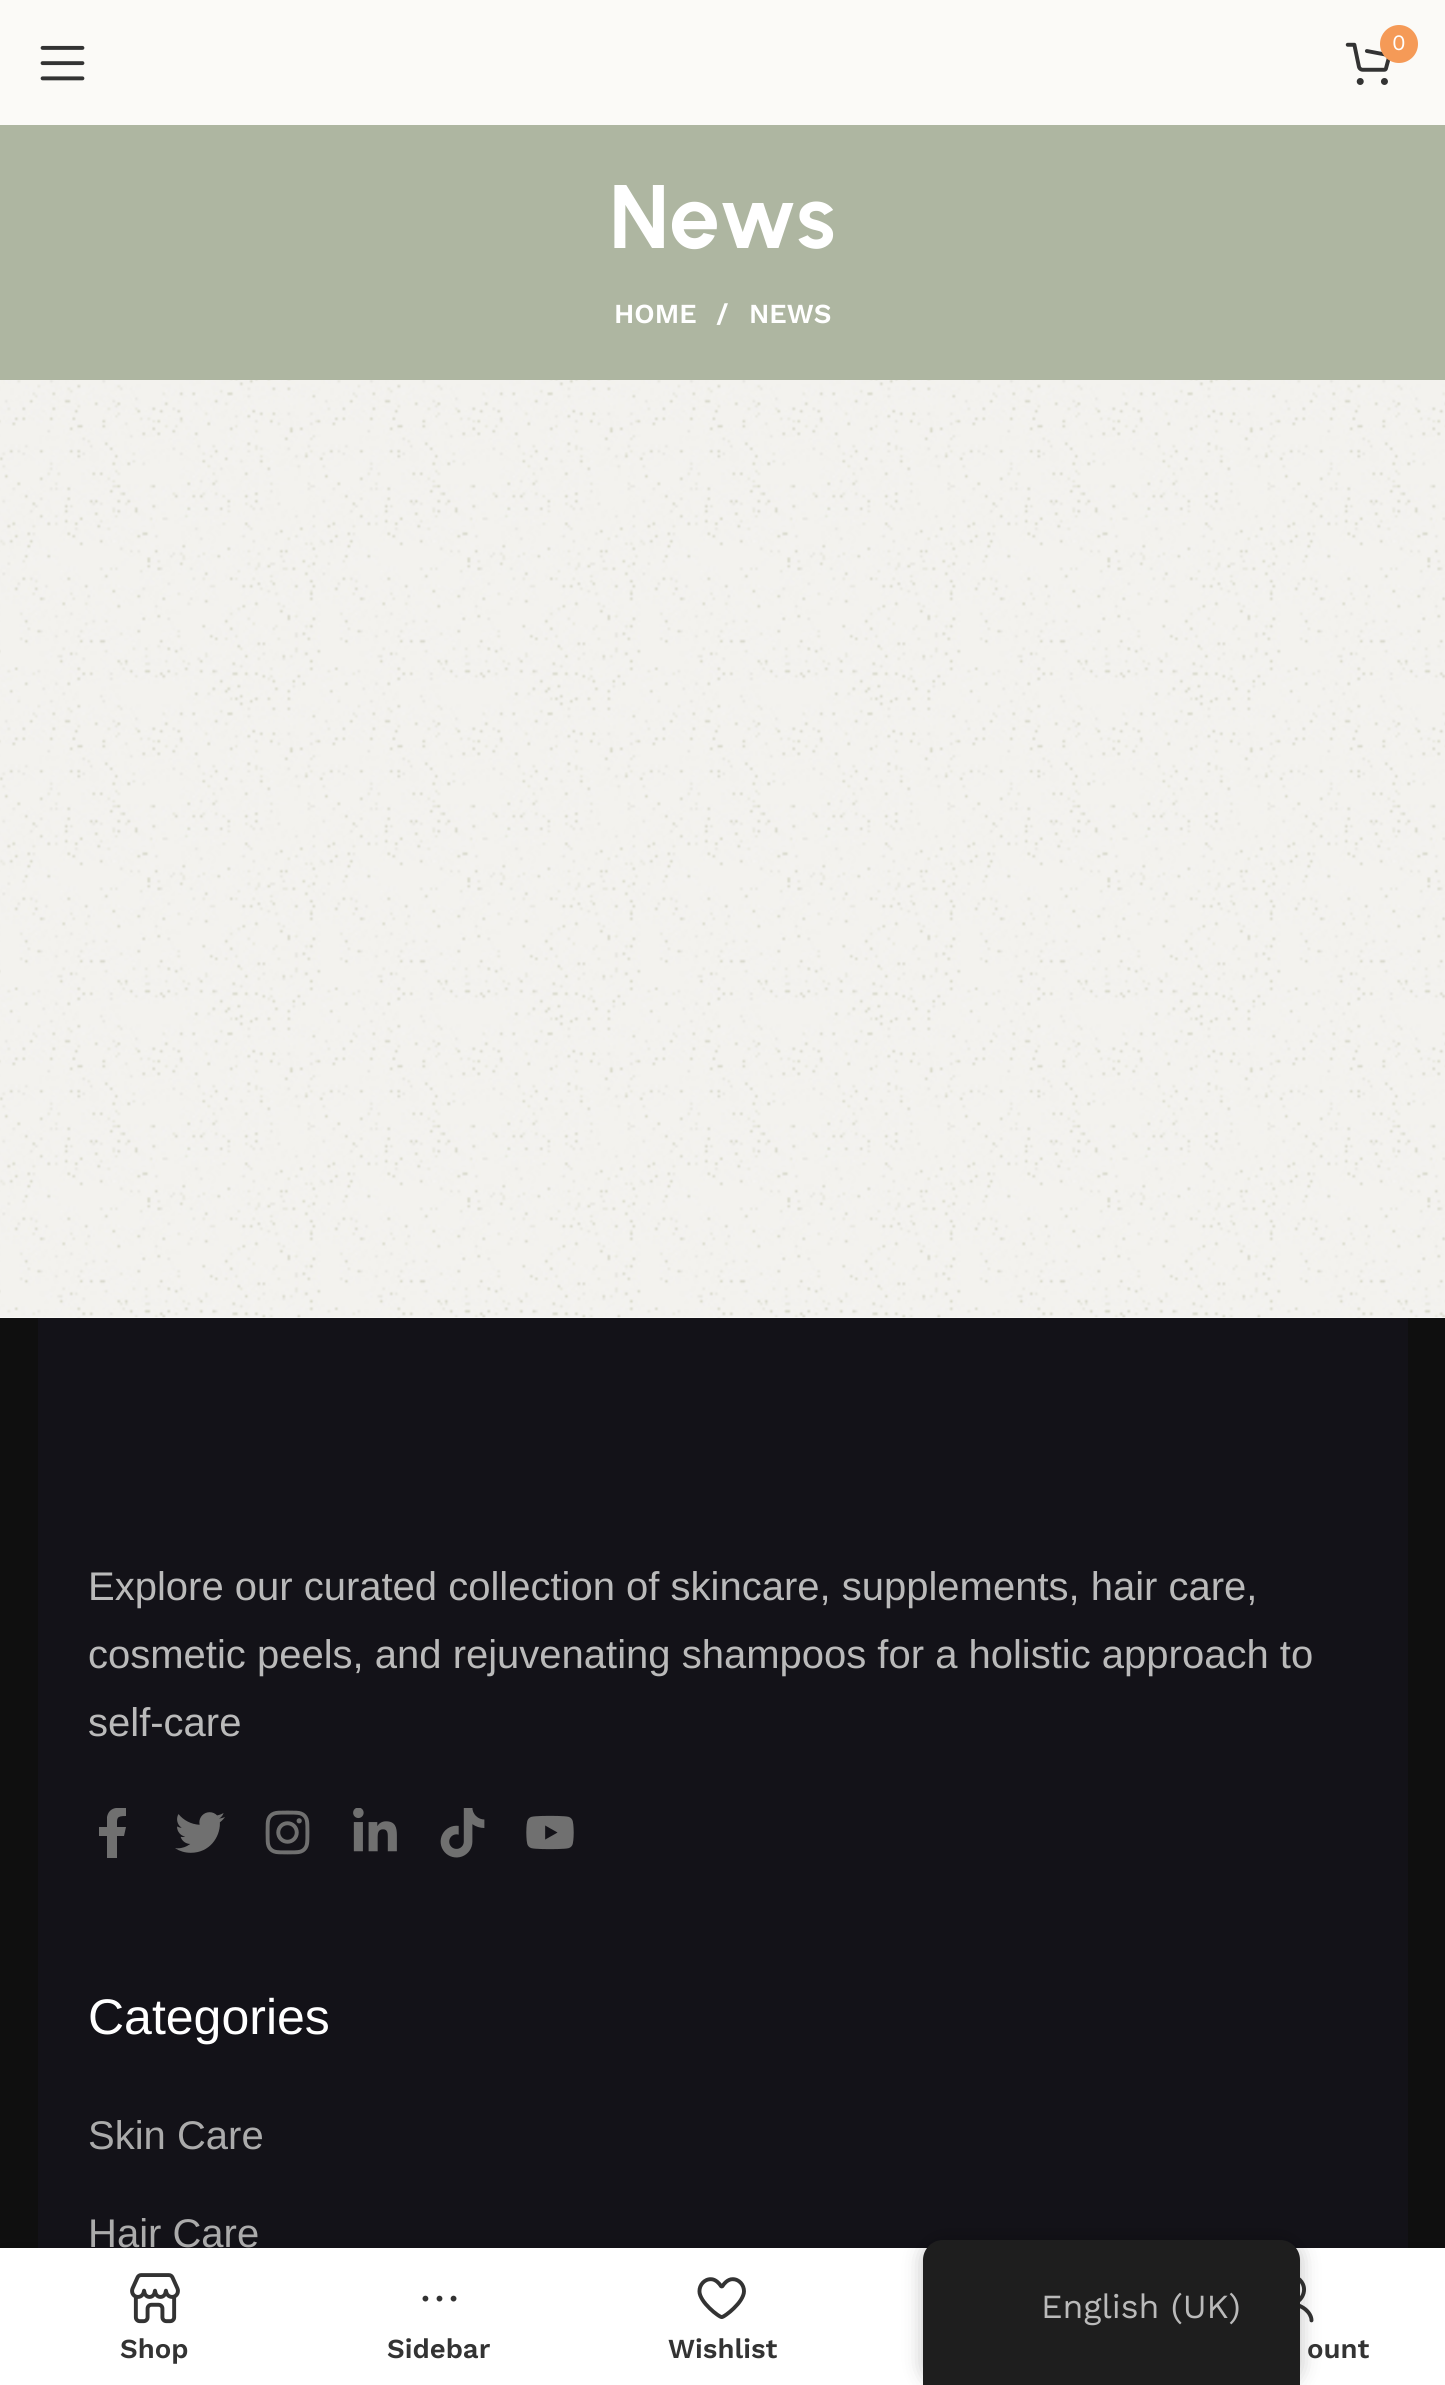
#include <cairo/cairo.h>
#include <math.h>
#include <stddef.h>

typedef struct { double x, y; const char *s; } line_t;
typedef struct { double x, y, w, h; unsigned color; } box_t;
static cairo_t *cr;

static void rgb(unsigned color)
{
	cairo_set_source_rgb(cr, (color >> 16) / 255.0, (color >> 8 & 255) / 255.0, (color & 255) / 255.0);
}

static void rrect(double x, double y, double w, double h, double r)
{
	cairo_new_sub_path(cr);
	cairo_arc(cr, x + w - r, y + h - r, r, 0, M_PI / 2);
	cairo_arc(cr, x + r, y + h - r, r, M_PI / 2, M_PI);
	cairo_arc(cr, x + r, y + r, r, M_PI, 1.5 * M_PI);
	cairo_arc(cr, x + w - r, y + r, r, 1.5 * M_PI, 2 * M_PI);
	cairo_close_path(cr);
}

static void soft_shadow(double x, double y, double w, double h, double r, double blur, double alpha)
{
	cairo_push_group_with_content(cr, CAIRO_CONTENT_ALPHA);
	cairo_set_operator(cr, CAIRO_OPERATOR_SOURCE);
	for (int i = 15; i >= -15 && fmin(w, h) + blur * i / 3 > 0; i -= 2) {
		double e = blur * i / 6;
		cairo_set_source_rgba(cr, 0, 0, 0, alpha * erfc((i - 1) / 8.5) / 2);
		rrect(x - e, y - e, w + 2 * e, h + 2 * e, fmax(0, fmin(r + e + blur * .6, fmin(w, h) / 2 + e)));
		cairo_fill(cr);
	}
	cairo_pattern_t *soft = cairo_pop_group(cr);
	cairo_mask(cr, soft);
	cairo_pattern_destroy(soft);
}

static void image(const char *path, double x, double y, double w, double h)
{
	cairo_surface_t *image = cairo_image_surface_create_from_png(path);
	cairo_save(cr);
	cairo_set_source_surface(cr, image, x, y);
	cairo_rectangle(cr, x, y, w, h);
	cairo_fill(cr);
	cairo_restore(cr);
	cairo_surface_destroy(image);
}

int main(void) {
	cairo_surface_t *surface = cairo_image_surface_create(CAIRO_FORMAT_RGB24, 1445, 2385);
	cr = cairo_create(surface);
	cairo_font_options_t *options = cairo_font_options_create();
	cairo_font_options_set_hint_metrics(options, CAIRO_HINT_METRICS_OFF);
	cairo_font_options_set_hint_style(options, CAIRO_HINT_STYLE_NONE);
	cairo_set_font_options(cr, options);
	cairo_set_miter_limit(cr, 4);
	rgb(0xffffff);
	cairo_paint(cr);
	rgb(0xfbfaf7);
	cairo_rectangle(cr, 0, 0, 1445, 125);
	cairo_fill(cr);
	image("img/1.png", 1345, 42, 46, 43);
	rgb(0xf59a57);
	cairo_arc(cr, 1399, 44, 19, 0, 2 * M_PI);
	cairo_fill(cr);
	image("img/2.png", 40, 45, 45, 36);
	image("img/3.png", 0, 380, 1445, 938);
	{
		static const box_t items[] = {
			{0, 125, 1445, 255, 0xaeb6a1},
			{0, 1318, 1445, 930, 0x0f0f0f},
			{38, 1318, 1370, 930, 0x131218},
		};
		for (size_t i = 0; i < sizeof items / sizeof *items; i++) {
			rgb(items[i].color);
			cairo_rectangle(cr, items[i].x, items[i].y, items[i].w, items[i].h);
			cairo_fill(cr);
		}
	}
	cairo_save(cr);
	cairo_rectangle(cr, 88, 1808, 50, 50);
	cairo_clip(cr);
	rgb(0x707070);
	cairo_new_path(cr);
	cairo_move_to(cr, 124, 1836);
	cairo_line_to(cr, 126, 1827);
	cairo_line_to(cr, 117, 1827);
	cairo_curve_to(cr, 117, 1818, 116, 1816, 126, 1816);
	cairo_line_to(cr, 126, 1808);
	cairo_curve_to(cr, 118, 1807, 109, 1807, 107, 1817);
	cairo_line_to(cr, 107, 1827);
	cairo_line_to(cr, 99, 1827);
	cairo_line_to(cr, 99, 1836);
	cairo_line_to(cr, 107, 1836);
	cairo_line_to(cr, 107, 1858);
	cairo_line_to(cr, 117, 1858);
	cairo_line_to(cr, 117, 1836);
	cairo_close_path(cr);
	cairo_fill(cr);
	cairo_restore(cr);
	image("img/4.png", 175, 1812, 50, 41);
	image("img/5.png", 265, 1810, 45, 45);
	image("img/6.png", 353, 1808, 44, 44);
	image("img/7.png", 440, 1808, 45, 50);
	image("img/8.png", 526, 1815, 48, 35);
	rgb(0x000000);
	soft_shadow(0, 2248, 1445, 137, 0, 11, 0.12);
	rgb(0xffffff);
	cairo_rectangle(cr, 0, 2248, 1445, 137);
	cairo_fill(cr);
	image("img/12.png", 1300, 2277, 14, 46);
	rgb(0x000000);
	soft_shadow(923, 2240, 377, 145, 20, 10, 0.25);
	rgb(0x1e1e1e);
	cairo_new_path(cr);
	cairo_move_to(cr, 943, 2240);
	cairo_line_to(cr, 1280, 2240);
	cairo_curve_to(cr, 1291, 2240, 1300, 2249, 1300, 2260);
	cairo_line_to(cr, 1300, 2385);
	cairo_line_to(cr, 923, 2385);
	cairo_line_to(cr, 923, 2260);
	cairo_curve_to(cr, 923, 2249, 932, 2240, 943, 2240);
	cairo_close_path(cr);
	cairo_fill(cr);
	image("img/9.png", 130, 2273, 50, 51);
	image("img/10.png", 422, 2295, 35, 7);
	image("img/11.png", 697, 2277, 49, 42);
	cairo_select_font_face(cr, "Work Sans", CAIRO_FONT_SLANT_NORMAL, CAIRO_FONT_WEIGHT_NORMAL);
	cairo_set_font_size(cr, 22);
	rgb(0xffffff);
	cairo_move_to(cr, 1392, 50);
	cairo_show_text(cr, "0");
	cairo_select_font_face(cr, "Urbanist", CAIRO_FONT_SLANT_NORMAL, CAIRO_FONT_WEIGHT_BOLD);
	cairo_set_font_size(cr, 90);
	cairo_move_to(cr, 609, 248);
	cairo_show_text(cr, "News");
	cairo_select_font_face(cr, "Work Sans SemiBold", CAIRO_FONT_SLANT_NORMAL, CAIRO_FONT_WEIGHT_NORMAL);
	cairo_set_font_size(cr, 27.5);
	{
		static const line_t items[] = {
			{614, 323, "HOME"},
			{716, 323, "/"},
			{749, 323, "NEWS"},
		};
		for (size_t i = 0; i < sizeof items / sizeof *items; i++) {
			cairo_move_to(cr, items[i].x, items[i].y);
			cairo_show_text(cr, items[i].s);
		}
	}
	cairo_select_font_face(cr, "Liberation Sans", CAIRO_FONT_SLANT_NORMAL, CAIRO_FONT_WEIGHT_NORMAL);
	cairo_set_font_size(cr, 40);
	rgb(0xbababa);
	{
		static const line_t items[] = {
			{88, 1600, "Explore our curated collection of skincare, supplements, hair care,"},
			{88, 1668, "cosmetic peels, and rejuvenating shampoos for a holistic approach to"},
			{88, 1736, "self-care"},
		};
		for (size_t i = 0; i < sizeof items / sizeof *items; i++) {
			cairo_move_to(cr, items[i].x, items[i].y);
			cairo_show_text(cr, items[i].s);
		}
	}
	cairo_set_font_size(cr, 50);
	rgb(0xffffff);
	cairo_move_to(cr, 88, 2034);
	cairo_show_text(cr, "Categories");
	cairo_set_font_size(cr, 40);
	rgb(0xababab);
	cairo_move_to(cr, 88, 2149);
	cairo_show_text(cr, "Skin Care");
	cairo_move_to(cr, 88, 2247);
	cairo_show_text(cr, "Hair Care");
	cairo_select_font_face(cr, "Work Sans", CAIRO_FONT_SLANT_NORMAL, CAIRO_FONT_WEIGHT_NORMAL);
	cairo_set_font_size(cr, 33.75);
	rgb(0xbababa);
	cairo_move_to(cr, 1041, 2318);
	cairo_show_text(cr, "English (UK)");
	cairo_select_font_face(cr, "Work Sans SemiBold", CAIRO_FONT_SLANT_NORMAL, CAIRO_FONT_WEIGHT_NORMAL);
	cairo_set_font_size(cr, 27.5);
	rgb(0x333333);
	{
		static const line_t items[] = {
			{120, 2358, "Shop"},
			{387, 2358, "Sidebar"},
			{668, 2358, "Wishlist"},
			{1307, 2358, "ount"},
		};
		for (size_t i = 0; i < sizeof items / sizeof *items; i++) {
			cairo_move_to(cr, items[i].x, items[i].y);
			cairo_show_text(cr, items[i].s);
		}
	}
	cairo_surface_write_to_png(surface, "page.png");
	cairo_font_options_destroy(options);
	cairo_destroy(cr);
	cairo_surface_destroy(surface);
	return 0;
}
